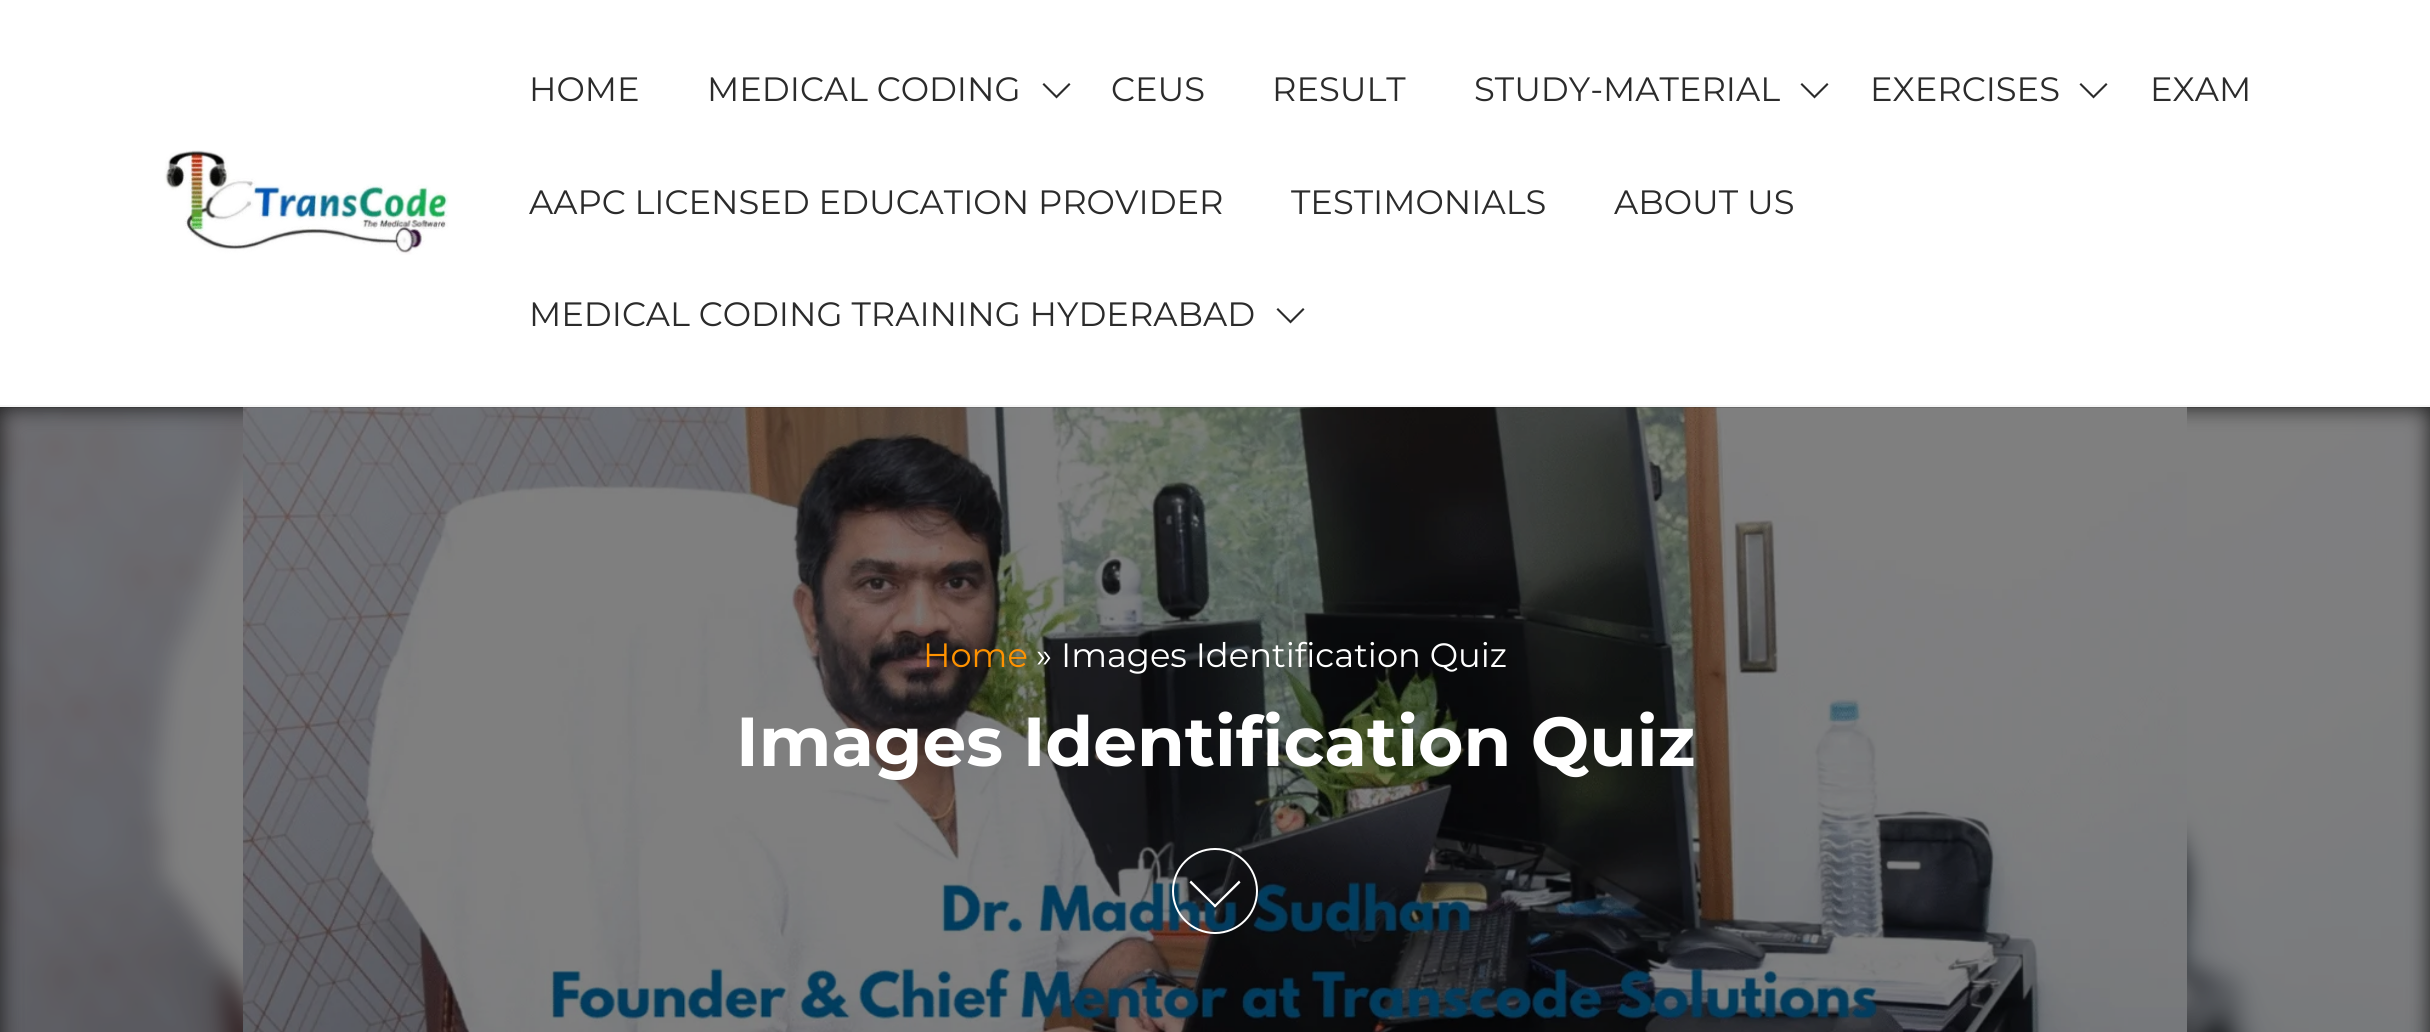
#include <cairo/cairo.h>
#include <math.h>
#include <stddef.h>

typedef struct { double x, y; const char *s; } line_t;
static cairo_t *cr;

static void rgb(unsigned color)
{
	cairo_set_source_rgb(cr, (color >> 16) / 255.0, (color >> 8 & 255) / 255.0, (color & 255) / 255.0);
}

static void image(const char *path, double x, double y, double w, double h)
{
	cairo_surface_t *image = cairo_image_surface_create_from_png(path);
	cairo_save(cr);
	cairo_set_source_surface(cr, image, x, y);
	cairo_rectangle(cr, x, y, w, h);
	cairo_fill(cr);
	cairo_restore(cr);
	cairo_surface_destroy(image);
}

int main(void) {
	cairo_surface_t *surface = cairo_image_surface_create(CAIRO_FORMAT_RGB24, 2430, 1032);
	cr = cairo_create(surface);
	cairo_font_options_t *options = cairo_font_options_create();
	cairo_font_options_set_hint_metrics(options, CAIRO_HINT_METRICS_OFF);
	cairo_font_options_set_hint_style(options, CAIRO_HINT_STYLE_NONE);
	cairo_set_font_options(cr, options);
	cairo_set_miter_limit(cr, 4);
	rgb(0x1e1e1e);
	cairo_paint(cr);
	rgb(0xffffff);
	cairo_rectangle(cr, 0, 0, 2430, 405);
	cairo_fill(cr);
	rgb(0xf6f6f6);
	cairo_rectangle(cr, 0, 405, 2430, 2);
	cairo_fill(cr);
	image("img/1.png", 164, 150, 285, 105);
	rgb(0x2b2b2b);
	cairo_new_path(cr);
	cairo_move_to(cr, 1044, 83);
	cairo_line_to(cr, 1042.5, 84.5);
	cairo_line_to(cr, 1056.5, 98.5);
	cairo_line_to(cr, 1070.5, 84.5);
	cairo_line_to(cr, 1069, 83);
	cairo_line_to(cr, 1056.5, 95.5);
	cairo_close_path(cr);
	cairo_fill(cr);
	cairo_new_path(cr);
	cairo_move_to(cr, 1802, 83);
	cairo_line_to(cr, 1800.5, 84.5);
	cairo_line_to(cr, 1814.5, 98.5);
	cairo_line_to(cr, 1828.5, 84.5);
	cairo_line_to(cr, 1827, 83);
	cairo_line_to(cr, 1814.5, 95.5);
	cairo_close_path(cr);
	cairo_fill(cr);
	cairo_new_path(cr);
	cairo_move_to(cr, 2081, 83);
	cairo_line_to(cr, 2079.5, 84.5);
	cairo_line_to(cr, 2093.5, 98.5);
	cairo_line_to(cr, 2107.5, 84.5);
	cairo_line_to(cr, 2106, 83);
	cairo_line_to(cr, 2093.5, 95.5);
	cairo_close_path(cr);
	cairo_fill(cr);
	cairo_new_path(cr);
	cairo_move_to(cr, 1278, 308);
	cairo_line_to(cr, 1276.5, 309.5);
	cairo_line_to(cr, 1290.5, 323.5);
	cairo_line_to(cr, 1304.5, 309.5);
	cairo_line_to(cr, 1303, 308);
	cairo_line_to(cr, 1290.5, 320.5);
	cairo_close_path(cr);
	cairo_fill(cr);
	image("img/2.png", 0, 407, 2430, 625);
	image("img/3.png", 243, 407, 1944, 625);
	cairo_arc(cr, 1215, 891, 42, 0, 2 * M_PI);
	rgb(0xffffff);
	cairo_stroke(cr);
	cairo_new_path(cr);
	cairo_move_to(cr, 1213.5, 906);
	cairo_line_to(cr, 1239, 880.5);
	cairo_line_to(cr, 1240.5, 882.5);
	cairo_line_to(cr, 1215, 907.5);
	cairo_close_path(cr);
	cairo_fill(cr);
	cairo_new_path(cr);
	cairo_move_to(cr, 1189.5, 882.5);
	cairo_line_to(cr, 1191, 880.5);
	cairo_line_to(cr, 1216.5, 906);
	cairo_line_to(cr, 1215, 907.5);
	cairo_close_path(cr);
	cairo_fill(cr);
	cairo_select_font_face(cr, "Montserrat", CAIRO_FONT_SLANT_NORMAL, CAIRO_FONT_WEIGHT_NORMAL);
	cairo_set_font_size(cr, 33.75);
	rgb(0x2b2b2b);
	{
		static const line_t items[] = {
			{529, 101, "HOME"},
			{707, 101, "MEDICAL CODING"},
			{1111, 101, "CEUS"},
			{1272, 101, "RESULT"},
			{1474, 101, "STUDY-MATERIAL"},
			{1870, 101, "EXERCISES"},
			{2150, 101, "EXAM"},
			{529, 214, "AAPC LICENSED EDUCATION PROVIDER"},
			{1291, 214, "TESTIMONIALS"},
			{1614, 214, "ABOUT US"},
			{529, 326, "MEDICAL CODING TRAINING HYDERABAD"},
		};
		for (size_t i = 0; i < sizeof items / sizeof *items; i++) {
			cairo_move_to(cr, items[i].x, items[i].y);
			cairo_show_text(cr, items[i].s);
		}
	}
	rgb(0xff9200);
	cairo_move_to(cr, 923, 667);
	cairo_show_text(cr, "Home");
	rgb(0xffffff);
	cairo_move_to(cr, 1036, 667);
	cairo_show_text(cr, "» Images Identification Quiz");
	cairo_select_font_face(cr, "Montserrat", CAIRO_FONT_SLANT_NORMAL, CAIRO_FONT_WEIGHT_BOLD);
	cairo_set_font_size(cr, 69.25);
	cairo_move_to(cr, 736, 766);
	cairo_show_text(cr, "Images Identification Quiz");
	cairo_surface_write_to_png(surface, "page.png");
	cairo_font_options_destroy(options);
	cairo_destroy(cr);
	cairo_surface_destroy(surface);
	return 0;
}
